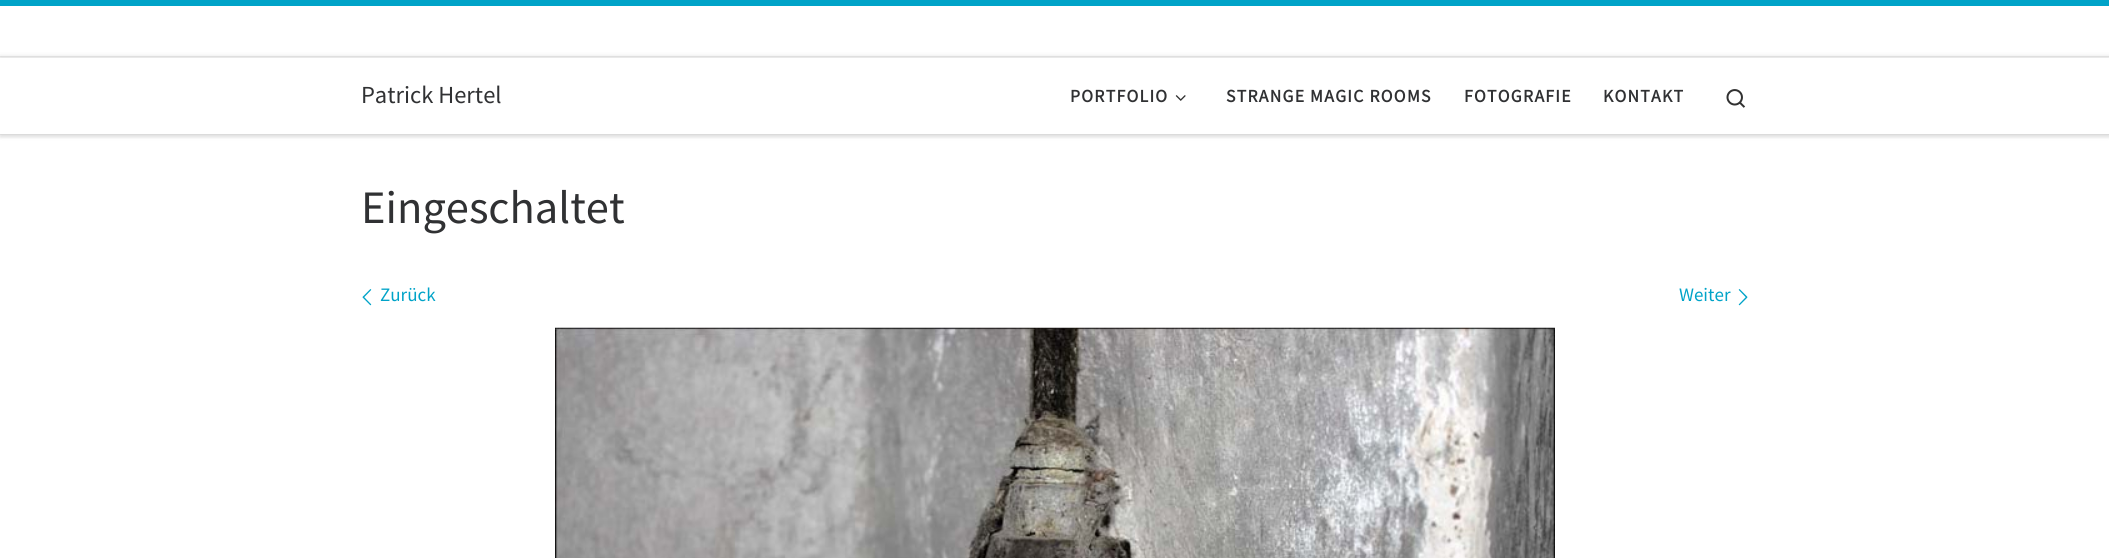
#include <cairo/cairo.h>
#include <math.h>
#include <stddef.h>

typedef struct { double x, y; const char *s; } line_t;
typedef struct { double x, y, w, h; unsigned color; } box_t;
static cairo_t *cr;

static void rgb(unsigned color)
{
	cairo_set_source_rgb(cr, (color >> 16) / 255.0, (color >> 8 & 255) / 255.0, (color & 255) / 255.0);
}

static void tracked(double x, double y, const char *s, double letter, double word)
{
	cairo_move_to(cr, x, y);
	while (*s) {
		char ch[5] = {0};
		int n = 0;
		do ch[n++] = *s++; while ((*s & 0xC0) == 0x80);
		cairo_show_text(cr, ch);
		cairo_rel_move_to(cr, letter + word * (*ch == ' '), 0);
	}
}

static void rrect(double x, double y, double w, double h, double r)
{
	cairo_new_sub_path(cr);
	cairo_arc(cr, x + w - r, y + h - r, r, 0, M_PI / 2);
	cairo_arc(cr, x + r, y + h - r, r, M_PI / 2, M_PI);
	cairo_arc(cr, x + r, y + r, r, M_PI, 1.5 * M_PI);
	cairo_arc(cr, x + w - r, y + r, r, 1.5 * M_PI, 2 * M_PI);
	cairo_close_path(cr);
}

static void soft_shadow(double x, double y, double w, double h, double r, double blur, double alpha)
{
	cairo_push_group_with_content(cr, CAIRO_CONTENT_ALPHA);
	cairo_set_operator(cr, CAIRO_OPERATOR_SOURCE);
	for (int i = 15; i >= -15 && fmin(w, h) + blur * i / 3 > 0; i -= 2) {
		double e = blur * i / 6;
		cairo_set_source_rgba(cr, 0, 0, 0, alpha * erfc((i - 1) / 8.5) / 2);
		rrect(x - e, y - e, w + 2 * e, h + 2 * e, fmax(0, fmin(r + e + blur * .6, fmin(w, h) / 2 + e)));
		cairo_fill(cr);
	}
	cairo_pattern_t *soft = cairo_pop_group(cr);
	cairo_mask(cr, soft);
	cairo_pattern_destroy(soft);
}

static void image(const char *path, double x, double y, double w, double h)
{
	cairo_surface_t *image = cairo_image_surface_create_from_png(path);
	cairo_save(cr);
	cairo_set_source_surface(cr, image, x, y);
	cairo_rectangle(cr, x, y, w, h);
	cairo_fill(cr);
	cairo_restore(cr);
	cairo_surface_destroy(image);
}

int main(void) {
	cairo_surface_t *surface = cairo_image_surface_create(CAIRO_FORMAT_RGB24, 2109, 558);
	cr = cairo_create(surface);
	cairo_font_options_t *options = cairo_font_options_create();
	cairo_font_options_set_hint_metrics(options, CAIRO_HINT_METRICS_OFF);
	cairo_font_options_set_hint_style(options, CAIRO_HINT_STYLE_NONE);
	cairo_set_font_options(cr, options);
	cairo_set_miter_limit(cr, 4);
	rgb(0xffffff);
	cairo_paint(cr);
	cairo_save(cr);
	cairo_rectangle(cr, 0, 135, 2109, 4);
	cairo_clip(cr);
	rgb(0x666666);
	soft_shadow(0, 3, 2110, 135, 0, 1, 0.08);
	cairo_restore(cr);
	{
		static const box_t items[] = {
			{0, 0, 2109, 6, 0x00a3c8},
			{0, 56, 2109, 1, 0xececec},
			{0, 134, 2109, 1, 0xefefef},
		};
		for (size_t i = 0; i < sizeof items / sizeof *items; i++) {
			rgb(items[i].color);
			cairo_rectangle(cr, items[i].x, items[i].y, items[i].w, items[i].h);
			cairo_fill(cr);
		}
	}
	rgb(0x000000);
	soft_shadow(0, 58, 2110, 76, 0, 3, 0.2);
	rgb(0xffffff);
	cairo_rectangle(cr, 0, 58, 2109, 76);
	cairo_fill(cr);
	image("img/1.png", 1175, 95, 11, 6);
	image("img/2.png", 1726, 89, 20, 19);
	image("img/3.png", 362, 289, 10, 17);
	image("img/4.png", 1738, 289, 10, 17);
	image("img/5.png", 555, 327, 1000, 231);
	cairo_select_font_face(cr, "Source Sans Pro", CAIRO_FONT_SLANT_NORMAL, CAIRO_FONT_WEIGHT_NORMAL);
	cairo_set_font_size(cr, 24.5);
	rgb(0x303133);
	cairo_move_to(cr, 361, 103);
	cairo_show_text(cr, "Patrick Hertel");
	cairo_select_font_face(cr, "Source Sans Pro", CAIRO_FONT_SLANT_NORMAL, CAIRO_FONT_WEIGHT_BOLD);
	cairo_set_font_size(cr, 17.75);
	{
		static const line_t items[] = {
			{1070, 102, "PORTFOLIO"},
			{1226, 102, "STRANGE MAGIC ROOMS"},
			{1464, 102, "FOTOGRAFIE"},
			{1603, 102, "KONTAKT"},
		};
		for (size_t i = 0; i < sizeof items / sizeof *items; i++) {
			tracked(items[i].x, items[i].y, items[i].s, 1.25, 0);
		}
	}
	cairo_select_font_face(cr, "Source Sans Pro", CAIRO_FONT_SLANT_NORMAL, CAIRO_FONT_WEIGHT_NORMAL);
	cairo_set_font_size(cr, 46.5);
	cairo_move_to(cr, 361, 223);
	cairo_show_text(cr, "Eingeschaltet");
	cairo_set_font_size(cr, 19);
	rgb(0x00a3c8);
	cairo_move_to(cr, 380, 301);
	cairo_show_text(cr, "Zurück");
	cairo_move_to(cr, 1679, 301);
	cairo_show_text(cr, "Weiter");
	cairo_surface_write_to_png(surface, "page.png");
	cairo_font_options_destroy(options);
	cairo_destroy(cr);
	cairo_surface_destroy(surface);
	return 0;
}
